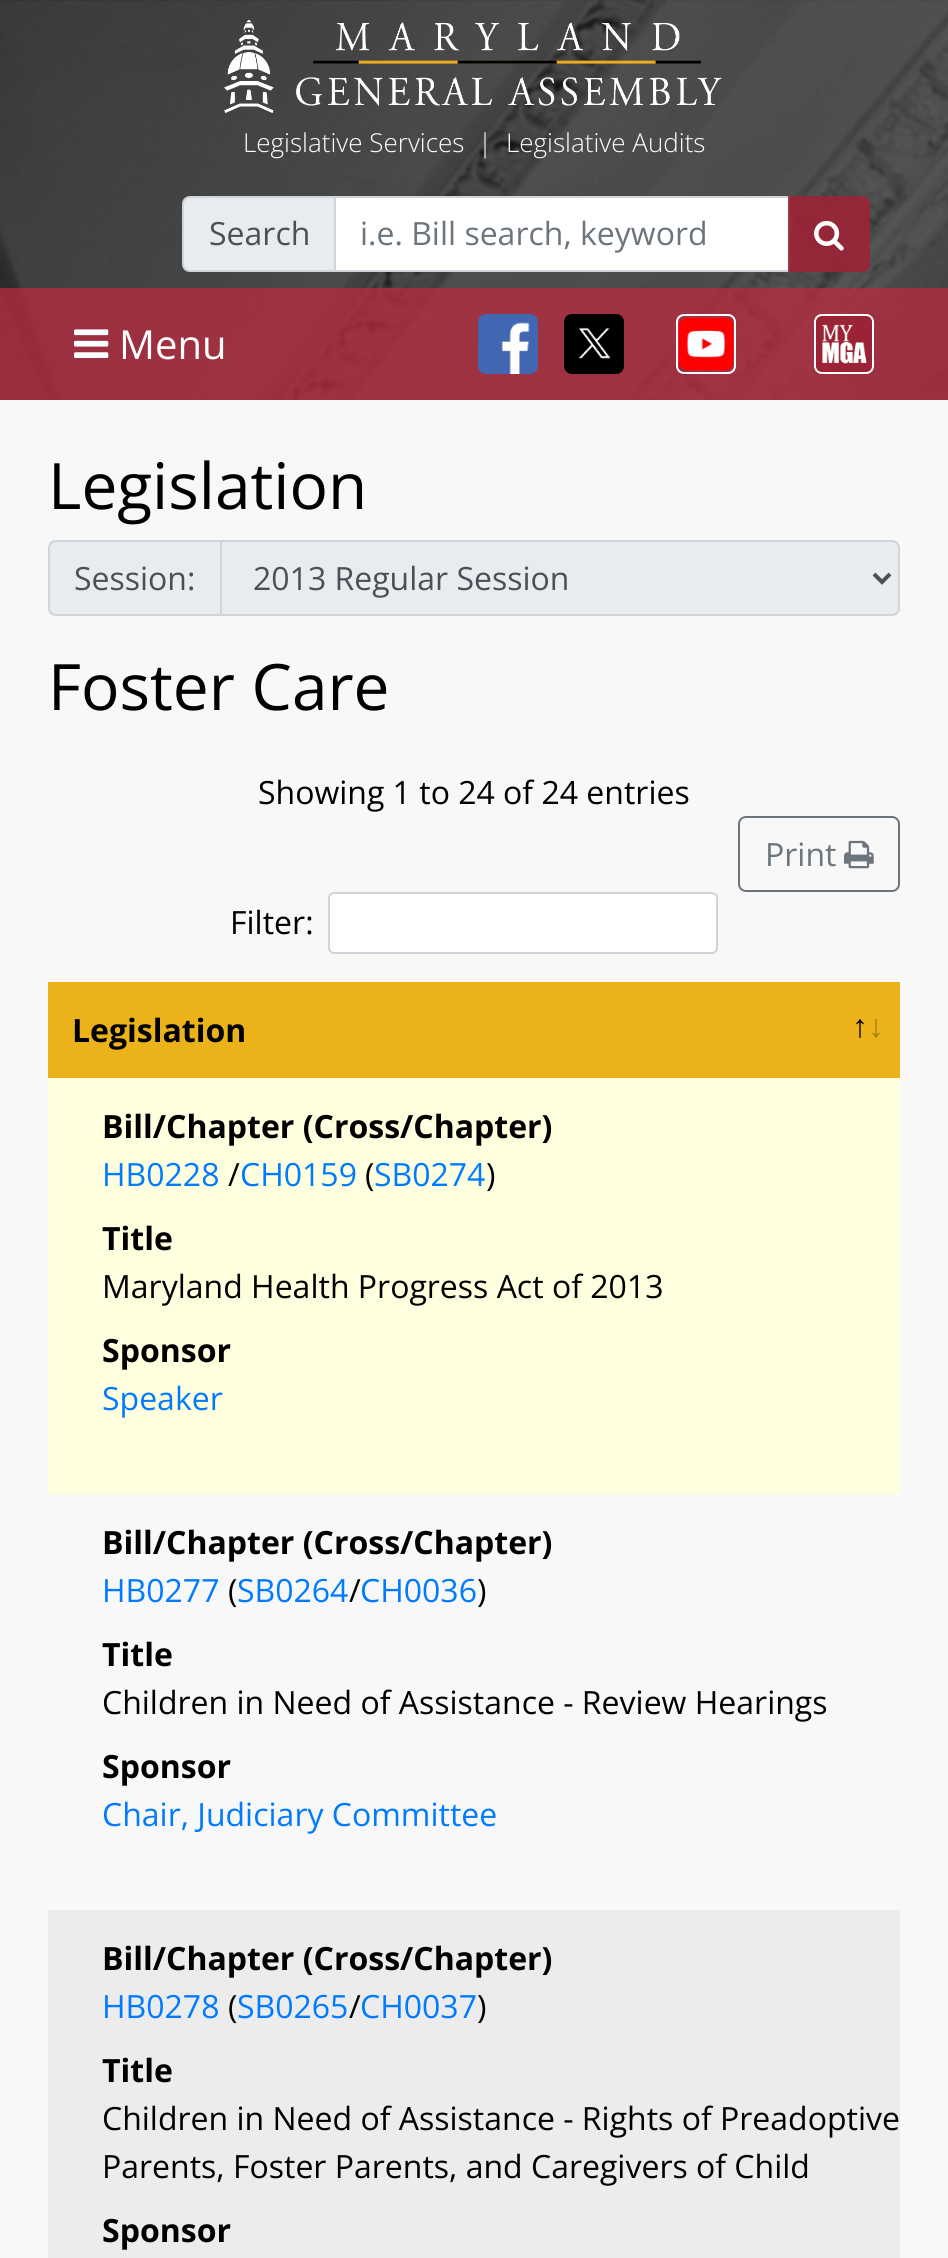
#include <cairo/cairo.h>
#include <math.h>
#include <stddef.h>

typedef struct { double x, y; const char *s; } line_t;
typedef struct { double x, y, w, h; unsigned color; } box_t;
static cairo_t *cr;

static void rgb(unsigned color)
{
	cairo_set_source_rgb(cr, (color >> 16) / 255.0, (color >> 8 & 255) / 255.0, (color & 255) / 255.0);
}

static void rrect(double x, double y, double w, double h, double r)
{
	cairo_new_sub_path(cr);
	cairo_arc(cr, x + w - r, y + h - r, r, 0, M_PI / 2);
	cairo_arc(cr, x + r, y + h - r, r, M_PI / 2, M_PI);
	cairo_arc(cr, x + r, y + r, r, M_PI, 1.5 * M_PI);
	cairo_arc(cr, x + w - r, y + r, r, 1.5 * M_PI, 2 * M_PI);
	cairo_close_path(cr);
}

static void image(const char *path, double x, double y, double w, double h)
{
	cairo_surface_t *image = cairo_image_surface_create_from_png(path);
	cairo_save(cr);
	cairo_set_source_surface(cr, image, x, y);
	cairo_rectangle(cr, x, y, w, h);
	cairo_fill(cr);
	cairo_restore(cr);
	cairo_surface_destroy(image);
}

int main(void) {
	cairo_surface_t *surface = cairo_image_surface_create(CAIRO_FORMAT_RGB24, 948, 2258);
	cr = cairo_create(surface);
	cairo_font_options_t *options = cairo_font_options_create();
	cairo_font_options_set_hint_metrics(options, CAIRO_HINT_METRICS_OFF);
	cairo_font_options_set_hint_style(options, CAIRO_HINT_STYLE_NONE);
	cairo_set_font_options(cr, options);
	cairo_set_miter_limit(cr, 4);
	rgb(0xf8f8f8);
	cairo_paint(cr);
	image("img/1.png", 0, 0, 948, 400);
	cairo_set_source_rgba(cr, 0, 0, 0, 0.6);
	cairo_rectangle(cr, 0, 0, 948, 288);
	cairo_fill(cr);
	image("img/2.png", 224, 20, 498, 94);
	rgb(0xe9ecef);
	cairo_new_path(cr);
	cairo_move_to(cr, 190, 197);
	cairo_line_to(cr, 335, 197);
	cairo_line_to(cr, 335, 271);
	cairo_line_to(cr, 190, 271);
	cairo_curve_to(cr, 186, 271, 183, 268, 183, 264);
	cairo_line_to(cr, 183, 204);
	cairo_curve_to(cr, 183, 200, 186, 197, 190, 197);
	cairo_close_path(cr);
	cairo_fill_preserve(cr);
	rgb(0xced4da);
	cairo_stroke(cr);
	rgb(0xffffff);
	cairo_rectangle(cr, 335, 197, 454, 74);
	cairo_fill_preserve(cr);
	rgb(0xced4da);
	cairo_stroke(cr);
	cairo_set_source_rgba(cr, 0.612, 0.141, 0.212, 0.9);
	cairo_new_path(cr);
	cairo_move_to(cr, 788, 196);
	cairo_line_to(cr, 862, 196);
	cairo_curve_to(cr, 866.5, 196, 870, 199.5, 870, 204);
	cairo_line_to(cr, 870, 264);
	cairo_curve_to(cr, 870, 268.5, 866.5, 272, 862, 272);
	cairo_line_to(cr, 788, 272);
	cairo_close_path(cr);
	cairo_fill(cr);
	image("img/3.png", 814, 220, 30, 31);
	cairo_rectangle(cr, 0, 288, 948, 112);
	cairo_fill(cr);
	image("img/4.png", 74, 329, 35, 29);
	image("img/5.png", 478, 314, 60, 60);
	image("img/6.png", 564, 314, 60, 60);
	rrect(677, 315, 58, 58, 7);
	rgb(0xffffff);
	cairo_stroke(cr);
	image("img/7.png", 678, 317, 56, 54);
	rrect(815, 315, 58, 58, 7);
	cairo_stroke(cr);
	image("img/8.png", 816, 316, 56, 56);
	rgb(0xe9ecef);
	cairo_new_path(cr);
	cairo_move_to(cr, 56, 541);
	cairo_line_to(cr, 221, 541);
	cairo_line_to(cr, 221, 615);
	cairo_line_to(cr, 56, 615);
	cairo_curve_to(cr, 52, 615, 49, 612, 49, 608);
	cairo_line_to(cr, 49, 548);
	cairo_curve_to(cr, 49, 544, 52, 541, 56, 541);
	cairo_close_path(cr);
	cairo_fill_preserve(cr);
	rgb(0xced4da);
	cairo_stroke(cr);
	rgb(0xe9ecef);
	cairo_new_path(cr);
	cairo_move_to(cr, 221, 541);
	cairo_line_to(cr, 892, 541);
	cairo_curve_to(cr, 896, 541, 899, 544, 899, 548);
	cairo_line_to(cr, 899, 608);
	cairo_curve_to(cr, 899, 612, 896, 615, 892, 615);
	cairo_line_to(cr, 221, 615);
	cairo_close_path(cr);
	cairo_fill_preserve(cr);
	rgb(0xced4da);
	cairo_stroke(cr);
	cairo_new_path(cr);
	cairo_move_to(cr, 874, 574);
	cairo_line_to(cr, 882, 582);
	cairo_line_to(cr, 890, 574);
	rgb(0x495057);
	cairo_set_line_width(cr, 4);
	cairo_stroke(cr);
	rrect(739, 817, 160, 74, 7);
	rgb(0x6c757d);
	cairo_set_line_width(cr, 2);
	cairo_stroke(cr);
	image("img/9.png", 844, 840, 30, 29);
	rgb(0xffffff);
	rrect(329, 893, 388, 60, 5);
	cairo_fill_preserve(cr);
	rgb(0xced4da);
	cairo_stroke(cr);
	{
		static const box_t items[] = {
			{48, 982, 852, 96, 0xebb219},
			{48, 1078, 852, 416, 0xffffe0},
			{48, 1910, 852, 348, 0xececec},
		};
		for (size_t i = 0; i < sizeof items / sizeof *items; i++) {
			rgb(items[i].color);
			cairo_rectangle(cr, items[i].x, items[i].y, items[i].w, items[i].h);
			cairo_fill(cr);
		}
	}
	cairo_select_font_face(cr, "Open Sans Light", CAIRO_FONT_SLANT_NORMAL, CAIRO_FONT_WEIGHT_NORMAL);
	cairo_set_font_size(cr, 26);
	rgb(0xffffff);
	{
		static const line_t items[] = {
			{243, 152, "Legislative Services"},
			{478, 152, "|"},
			{506, 152, "Legislative Audits"},
		};
		for (size_t i = 0; i < sizeof items / sizeof *items; i++) {
			cairo_move_to(cr, items[i].x, items[i].y);
			cairo_show_text(cr, items[i].s);
		}
	}
	cairo_select_font_face(cr, "Open Sans", CAIRO_FONT_SLANT_NORMAL, CAIRO_FONT_WEIGHT_NORMAL);
	cairo_set_font_size(cr, 32);
	rgb(0x495057);
	cairo_move_to(cr, 209, 245);
	cairo_show_text(cr, "Search");
	rgb(0x6c757d);
	cairo_move_to(cr, 360, 245);
	cairo_show_text(cr, "i.e. Bill search, keyword");
	cairo_set_font_size(cr, 40);
	rgb(0xffffff);
	cairo_move_to(cr, 119, 359);
	cairo_show_text(cr, "Menu");
	cairo_set_font_size(cr, 64);
	rgb(0x000000);
	cairo_move_to(cr, 48, 509);
	cairo_show_text(cr, "Legislation");
	cairo_set_font_size(cr, 32);
	rgb(0x495057);
	cairo_move_to(cr, 74, 590);
	cairo_show_text(cr, "Session:");
	cairo_move_to(cr, 253, 590);
	cairo_show_text(cr, "2013 Regular Session");
	cairo_set_font_size(cr, 64);
	rgb(0x000000);
	cairo_move_to(cr, 48, 710);
	cairo_show_text(cr, "Foster Care");
	cairo_set_font_size(cr, 32);
	cairo_move_to(cr, 258, 804);
	cairo_show_text(cr, "Showing 1 to 24 of 24 entries");
	rgb(0x6c757d);
	cairo_move_to(cr, 765, 866);
	cairo_show_text(cr, "Print");
	rgb(0x000000);
	cairo_move_to(cr, 230, 934);
	cairo_show_text(cr, "Filter:");
	cairo_select_font_face(cr, "Open Sans", CAIRO_FONT_SLANT_NORMAL, CAIRO_FONT_WEIGHT_BOLD);
	cairo_move_to(cr, 72, 1042);
	cairo_show_text(cr, "Legislation");
	cairo_select_font_face(cr, "Liberation Sans", CAIRO_FONT_SLANT_NORMAL, CAIRO_FONT_WEIGHT_BOLD);
	cairo_move_to(cr, 852, 1037);
	cairo_show_text(cr, "↑");
	rgb(0xa57d12);
	cairo_move_to(cr, 868, 1037);
	cairo_show_text(cr, "↓");
	cairo_select_font_face(cr, "Open Sans", CAIRO_FONT_SLANT_NORMAL, CAIRO_FONT_WEIGHT_BOLD);
	rgb(0x000000);
	cairo_move_to(cr, 102, 1138);
	cairo_show_text(cr, "Bill/Chapter (Cross/Chapter)");
	cairo_select_font_face(cr, "Open Sans", CAIRO_FONT_SLANT_NORMAL, CAIRO_FONT_WEIGHT_NORMAL);
	rgb(0x007bff);
	cairo_move_to(cr, 102, 1186);
	cairo_show_text(cr, "HB0228");
	rgb(0x000000);
	cairo_move_to(cr, 228, 1186);
	cairo_show_text(cr, "/");
	rgb(0x007bff);
	cairo_move_to(cr, 240, 1186);
	cairo_show_text(cr, "CH0159");
	rgb(0x000000);
	cairo_move_to(cr, 365, 1186);
	cairo_show_text(cr, "(");
	rgb(0x007bff);
	cairo_move_to(cr, 374, 1186);
	cairo_show_text(cr, "SB0274");
	rgb(0x000000);
	cairo_move_to(cr, 486, 1186);
	cairo_show_text(cr, ")");
	cairo_select_font_face(cr, "Open Sans", CAIRO_FONT_SLANT_NORMAL, CAIRO_FONT_WEIGHT_BOLD);
	cairo_move_to(cr, 102, 1250);
	cairo_show_text(cr, "Title");
	cairo_select_font_face(cr, "Open Sans", CAIRO_FONT_SLANT_NORMAL, CAIRO_FONT_WEIGHT_NORMAL);
	cairo_move_to(cr, 102, 1298);
	cairo_show_text(cr, "Maryland Health Progress Act of 2013");
	cairo_select_font_face(cr, "Open Sans", CAIRO_FONT_SLANT_NORMAL, CAIRO_FONT_WEIGHT_BOLD);
	cairo_move_to(cr, 102, 1362);
	cairo_show_text(cr, "Sponsor");
	cairo_select_font_face(cr, "Open Sans", CAIRO_FONT_SLANT_NORMAL, CAIRO_FONT_WEIGHT_NORMAL);
	rgb(0x007bff);
	cairo_move_to(cr, 102, 1410);
	cairo_show_text(cr, "Speaker");
	cairo_select_font_face(cr, "Open Sans", CAIRO_FONT_SLANT_NORMAL, CAIRO_FONT_WEIGHT_BOLD);
	rgb(0x000000);
	cairo_move_to(cr, 102, 1554);
	cairo_show_text(cr, "Bill/Chapter (Cross/Chapter)");
	cairo_select_font_face(cr, "Open Sans", CAIRO_FONT_SLANT_NORMAL, CAIRO_FONT_WEIGHT_NORMAL);
	rgb(0x007bff);
	cairo_move_to(cr, 102, 1602);
	cairo_show_text(cr, "HB0277");
	rgb(0x000000);
	cairo_move_to(cr, 228, 1602);
	cairo_show_text(cr, "(");
	rgb(0x007bff);
	cairo_move_to(cr, 237, 1602);
	cairo_show_text(cr, "SB0264");
	rgb(0x000000);
	cairo_move_to(cr, 349, 1602);
	cairo_show_text(cr, "/");
	rgb(0x007bff);
	cairo_move_to(cr, 360, 1602);
	cairo_show_text(cr, "CH0036");
	rgb(0x000000);
	cairo_move_to(cr, 477, 1602);
	cairo_show_text(cr, ")");
	cairo_select_font_face(cr, "Open Sans", CAIRO_FONT_SLANT_NORMAL, CAIRO_FONT_WEIGHT_BOLD);
	cairo_move_to(cr, 102, 1666);
	cairo_show_text(cr, "Title");
	cairo_select_font_face(cr, "Open Sans", CAIRO_FONT_SLANT_NORMAL, CAIRO_FONT_WEIGHT_NORMAL);
	cairo_move_to(cr, 102, 1714);
	cairo_show_text(cr, "Children in Need of Assistance - Review Hearings");
	cairo_select_font_face(cr, "Open Sans", CAIRO_FONT_SLANT_NORMAL, CAIRO_FONT_WEIGHT_BOLD);
	cairo_move_to(cr, 102, 1778);
	cairo_show_text(cr, "Sponsor");
	cairo_select_font_face(cr, "Open Sans", CAIRO_FONT_SLANT_NORMAL, CAIRO_FONT_WEIGHT_NORMAL);
	rgb(0x007bff);
	cairo_move_to(cr, 102, 1826);
	cairo_show_text(cr, "Chair, Judiciary Committee");
	cairo_select_font_face(cr, "Open Sans", CAIRO_FONT_SLANT_NORMAL, CAIRO_FONT_WEIGHT_BOLD);
	rgb(0x000000);
	cairo_move_to(cr, 102, 1970);
	cairo_show_text(cr, "Bill/Chapter (Cross/Chapter)");
	cairo_select_font_face(cr, "Open Sans", CAIRO_FONT_SLANT_NORMAL, CAIRO_FONT_WEIGHT_NORMAL);
	rgb(0x007bff);
	cairo_move_to(cr, 102, 2018);
	cairo_show_text(cr, "HB0278");
	rgb(0x000000);
	cairo_move_to(cr, 228, 2018);
	cairo_show_text(cr, "(");
	rgb(0x007bff);
	cairo_move_to(cr, 237, 2018);
	cairo_show_text(cr, "SB0265");
	rgb(0x000000);
	cairo_move_to(cr, 349, 2018);
	cairo_show_text(cr, "/");
	rgb(0x007bff);
	cairo_move_to(cr, 360, 2018);
	cairo_show_text(cr, "CH0037");
	rgb(0x000000);
	cairo_move_to(cr, 477, 2018);
	cairo_show_text(cr, ")");
	cairo_select_font_face(cr, "Open Sans", CAIRO_FONT_SLANT_NORMAL, CAIRO_FONT_WEIGHT_BOLD);
	cairo_move_to(cr, 102, 2082);
	cairo_show_text(cr, "Title");
	cairo_select_font_face(cr, "Open Sans", CAIRO_FONT_SLANT_NORMAL, CAIRO_FONT_WEIGHT_NORMAL);
	cairo_move_to(cr, 102, 2130);
	cairo_show_text(cr, "Children in Need of Assistance - Rights of Preadoptive");
	cairo_move_to(cr, 102, 2178);
	cairo_show_text(cr, "Parents, Foster Parents, and Caregivers of Child");
	cairo_select_font_face(cr, "Open Sans", CAIRO_FONT_SLANT_NORMAL, CAIRO_FONT_WEIGHT_BOLD);
	cairo_move_to(cr, 102, 2242);
	cairo_show_text(cr, "Sponsor");
	cairo_surface_write_to_png(surface, "page.png");
	cairo_font_options_destroy(options);
	cairo_destroy(cr);
	cairo_surface_destroy(surface);
	return 0;
}
